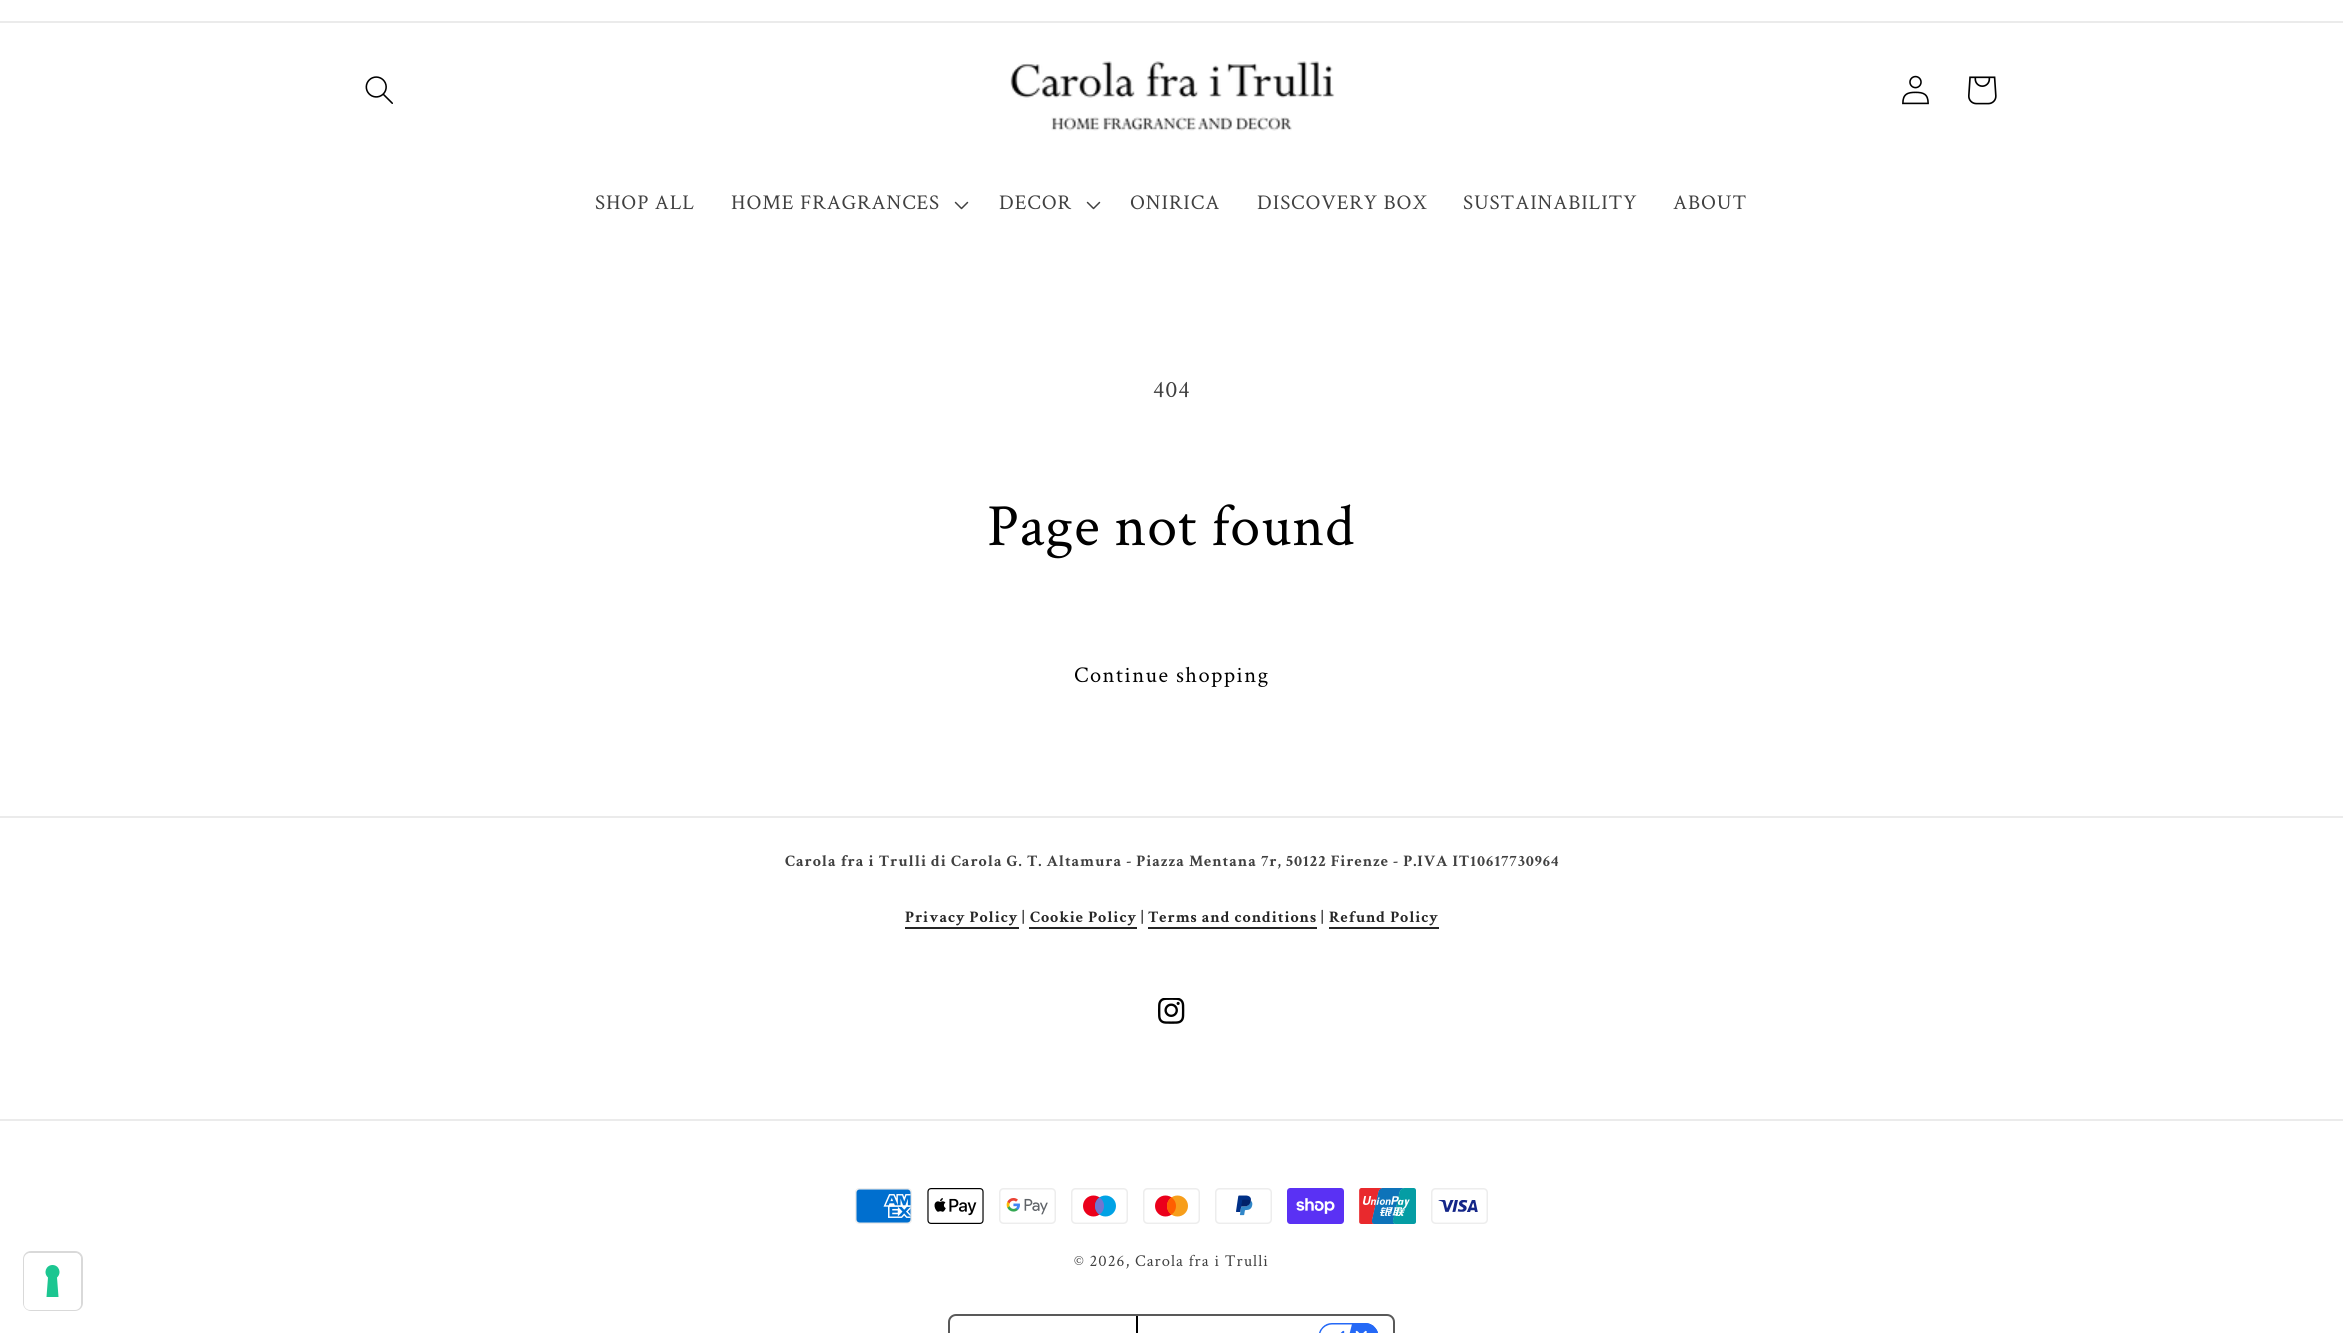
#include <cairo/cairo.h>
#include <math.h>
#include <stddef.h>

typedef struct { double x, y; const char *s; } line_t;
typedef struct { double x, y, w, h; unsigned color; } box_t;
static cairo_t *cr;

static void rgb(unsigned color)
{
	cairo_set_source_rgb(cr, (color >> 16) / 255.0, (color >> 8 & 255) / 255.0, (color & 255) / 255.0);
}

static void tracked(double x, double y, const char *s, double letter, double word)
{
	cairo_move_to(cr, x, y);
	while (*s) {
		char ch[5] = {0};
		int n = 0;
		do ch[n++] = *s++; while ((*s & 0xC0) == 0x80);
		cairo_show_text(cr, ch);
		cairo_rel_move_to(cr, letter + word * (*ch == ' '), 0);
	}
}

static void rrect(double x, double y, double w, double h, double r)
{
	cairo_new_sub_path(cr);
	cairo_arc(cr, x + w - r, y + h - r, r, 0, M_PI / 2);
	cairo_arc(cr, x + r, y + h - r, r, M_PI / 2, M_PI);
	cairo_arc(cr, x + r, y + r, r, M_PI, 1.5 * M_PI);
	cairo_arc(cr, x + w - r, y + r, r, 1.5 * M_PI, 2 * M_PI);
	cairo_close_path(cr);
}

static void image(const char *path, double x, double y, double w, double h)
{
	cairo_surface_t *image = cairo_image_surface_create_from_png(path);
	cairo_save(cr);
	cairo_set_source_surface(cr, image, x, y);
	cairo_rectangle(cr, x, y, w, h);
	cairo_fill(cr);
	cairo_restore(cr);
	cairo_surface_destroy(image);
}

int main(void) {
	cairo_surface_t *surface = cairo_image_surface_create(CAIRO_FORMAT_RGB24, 2343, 1333);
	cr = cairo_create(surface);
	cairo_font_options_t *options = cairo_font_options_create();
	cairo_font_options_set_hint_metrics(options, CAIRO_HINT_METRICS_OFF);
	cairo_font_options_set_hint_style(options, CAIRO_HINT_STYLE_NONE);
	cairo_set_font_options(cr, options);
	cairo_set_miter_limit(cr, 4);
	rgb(0xffffff);
	cairo_paint(cr);
	rgb(0xebebeb);
	cairo_rectangle(cr, 0, 21, 2343, 2);
	cairo_fill(cr);
	image("img/1.png", 365, 76, 28, 28);
	image("img/2.png", 1010, 61, 325, 70);
	image("img/3.png", 1902, 75, 27, 30);
	image("img/4.png", 1968, 76, 29, 29);
	image("img/5.png", 954, 201, 15, 9);
	image("img/5.png", 1086, 201, 15, 9);
	{
		static const box_t items[] = {
			{0, 816, 2343, 2, 0xebebeb},
			{905, 927, 114, 2, 0x262626},
			{1029, 927, 108, 2, 0x262626},
			{1148, 927, 169, 2, 0x262626},
			{1329, 927, 110, 2, 0x262626},
		};
		for (size_t i = 0; i < sizeof items / sizeof *items; i++) {
			rgb(items[i].color);
			cairo_rectangle(cr, items[i].x, items[i].y, items[i].w, items[i].h);
			cairo_fill(cr);
		}
	}
	image("img/6.png", 1158, 998, 27, 26);
	rgb(0xebebeb);
	cairo_rectangle(cr, 0, 1119, 2343, 2);
	cairo_fill(cr);
	image("img/7.png", 855, 1188, 57, 36);
	image("img/8.png", 927, 1188, 57, 36);
	image("img/9.png", 999, 1188, 57, 36);
	image("img/10.png", 1071, 1188, 57, 36);
	image("img/11.png", 1143, 1188, 57, 36);
	image("img/12.png", 1215, 1188, 57, 36);
	image("img/13.png", 1287, 1188, 57, 36);
	image("img/14.png", 1359, 1188, 57, 36);
	image("img/15.png", 1431, 1188, 57, 36);
	rrect(24, 1252, 58, 58, 7);
	rgb(0xd9d9d9);
	cairo_stroke(cr);
	rgb(0xffffff);
	rrect(24, 1253, 57, 57, 6);
	cairo_fill(cr);
	rgb(0x1cc691);
	cairo_set_fill_rule(cr, CAIRO_FILL_RULE_EVEN_ODD);
	cairo_new_path(cr);
	cairo_move_to(cr, 52.5, 1265);
	cairo_curve_to(cr, 59, 1265, 62, 1273, 57, 1277.5);
	cairo_line_to(cr, 58.5, 1297);
	cairo_line_to(cr, 46.5, 1297);
	cairo_line_to(cr, 48, 1277.5);
	cairo_curve_to(cr, 43, 1273, 46, 1265, 52.5, 1265);
	cairo_close_path(cr);
	cairo_fill(cr);
	rrect(949, 1315, 445, 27, 7);
	rgb(0x595959);
	cairo_stroke(cr);
	rgb(0x000000);
	cairo_rectangle(cr, 1136, 1316, 2, 17);
	cairo_fill(cr);
	image("img/16.png", 1319, 1323, 59, 10);
	cairo_select_font_face(cr, "Crimson Text", CAIRO_FONT_SLANT_NORMAL, CAIRO_FONT_WEIGHT_NORMAL);
	cairo_set_font_size(cr, 21);
	rgb(0x404040);
	{
		static const line_t items[] = {
			{595, 209, "SHOP ALL"},
			{731, 209, "HOME FRAGRANCES"},
			{999, 209, "DECOR"},
			{1130, 209, "ONIRICA"},
			{1257, 209, "DISCOVERY BOX"},
			{1463, 209, "SUSTAINABILITY"},
			{1673, 209, "ABOUT"},
		};
		for (size_t i = 0; i < sizeof items / sizeof *items; i++) {
			tracked(items[i].x, items[i].y, items[i].s, 0.9, 0);
		}
	}
	cairo_set_font_size(cr, 24);
	tracked(1153, 397, "404", 0.9, 0);
	cairo_set_font_size(cr, 60);
	rgb(0x000000);
	tracked(987, 545, "Page not found", 0.9, 0);
	cairo_set_font_size(cr, 22.5);
	tracked(1074, 682, "Continue shopping", 1.5, 0);
	cairo_select_font_face(cr, "Crimson Text", CAIRO_FONT_SLANT_NORMAL, CAIRO_FONT_WEIGHT_BOLD);
	cairo_set_font_size(cr, 16.1);
	rgb(0x404040);
	tracked(785, 866, "Carola fra i Trulli di Carola G. T. Altamura - Piazza Mentana 7r, 50122 Firenze - P.IVA IT10617730964", 0.9, 0);
	rgb(0x262626);
	tracked(905, 922, "Privacy Policy", 0.9, 0);
	rgb(0x404040);
	tracked(1022, 922, "|", 0.9, 0);
	rgb(0x262626);
	tracked(1030, 922, "Cookie Policy", 0.9, 0);
	rgb(0x404040);
	tracked(1141, 922, "|", 0.9, 0);
	rgb(0x262626);
	tracked(1148, 922, "Terms and conditions", 0.9, 0);
	rgb(0x404040);
	tracked(1321, 922, "|", 0.9, 0);
	rgb(0x262626);
	tracked(1329, 922, "Refund Policy", 0.9, 0);
	cairo_select_font_face(cr, "Crimson Text", CAIRO_FONT_SLANT_NORMAL, CAIRO_FONT_WEIGHT_NORMAL);
	cairo_set_font_size(cr, 16.5);
	rgb(0x404040);
	tracked(1074, 1266, "© 2026, Carola fra i Trulli", 1.05, 0);
	cairo_surface_write_to_png(surface, "page.png");
	cairo_font_options_destroy(options);
	cairo_destroy(cr);
	cairo_surface_destroy(surface);
	return 0;
}
